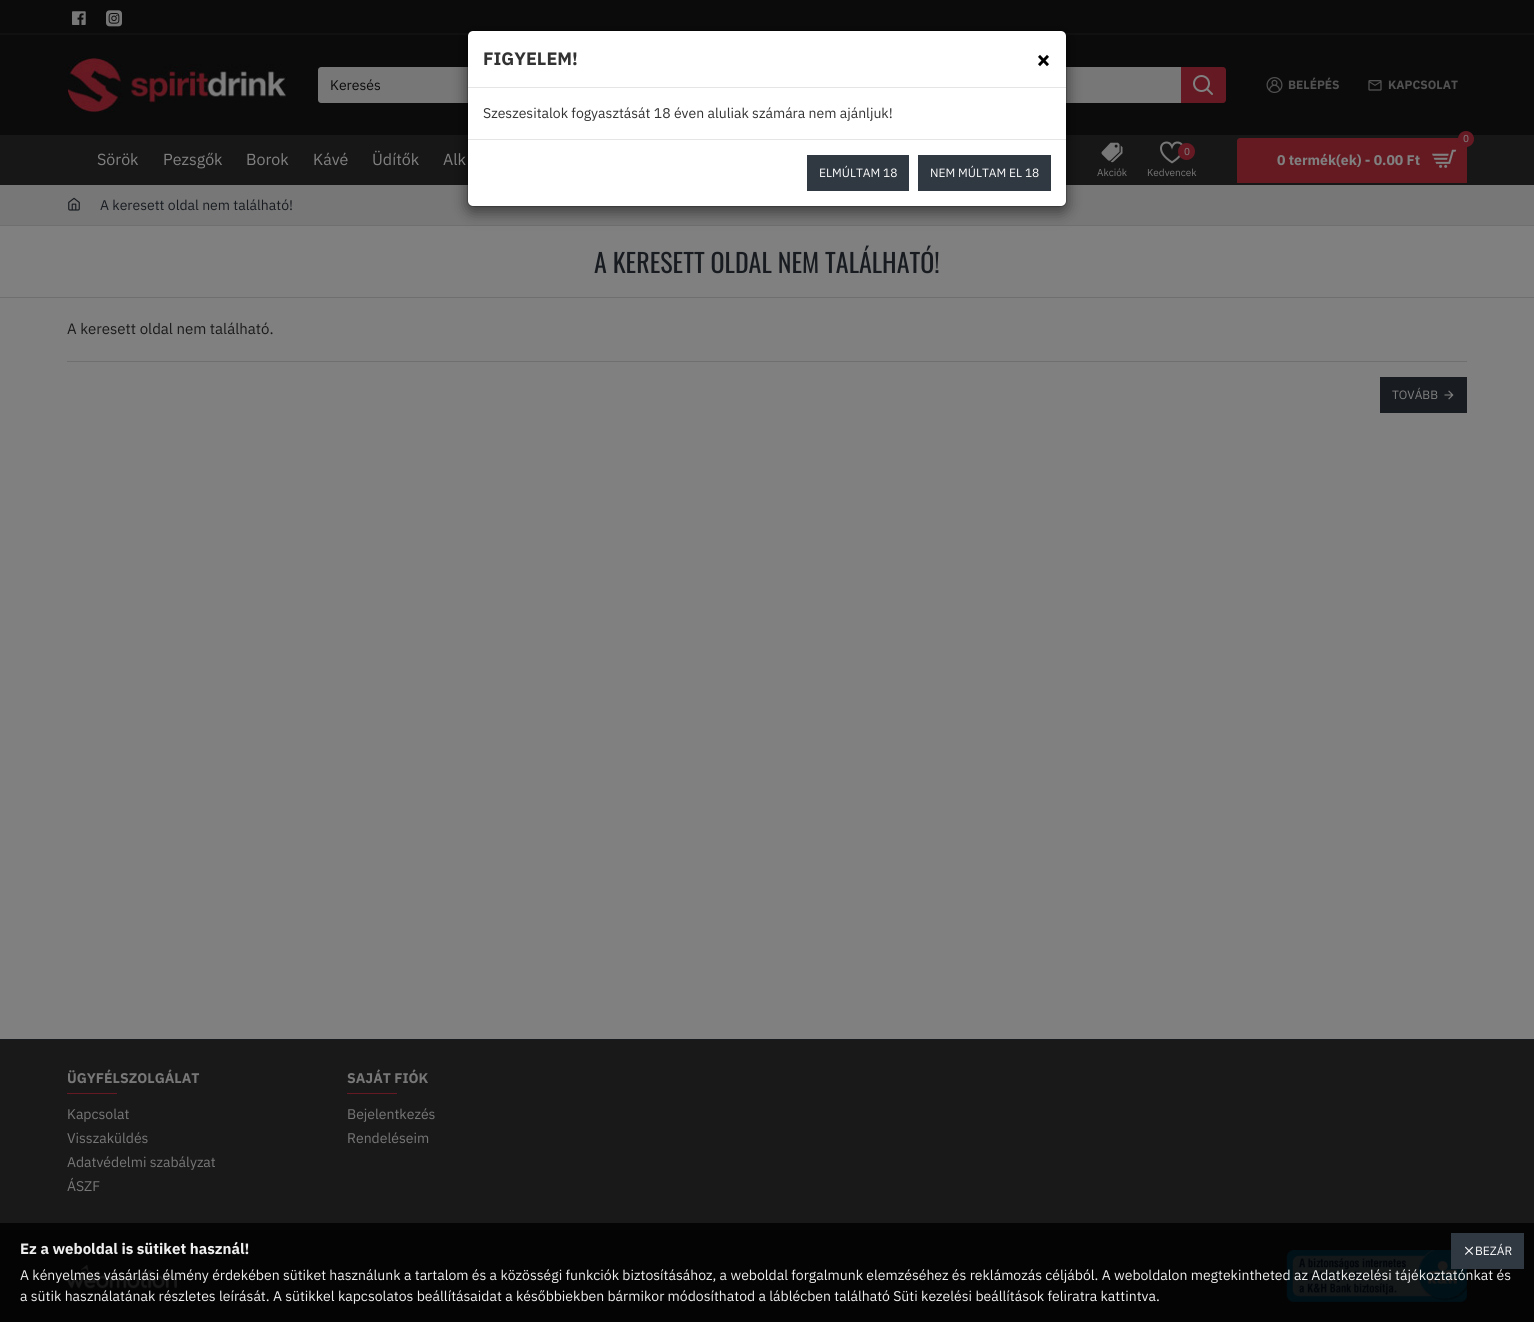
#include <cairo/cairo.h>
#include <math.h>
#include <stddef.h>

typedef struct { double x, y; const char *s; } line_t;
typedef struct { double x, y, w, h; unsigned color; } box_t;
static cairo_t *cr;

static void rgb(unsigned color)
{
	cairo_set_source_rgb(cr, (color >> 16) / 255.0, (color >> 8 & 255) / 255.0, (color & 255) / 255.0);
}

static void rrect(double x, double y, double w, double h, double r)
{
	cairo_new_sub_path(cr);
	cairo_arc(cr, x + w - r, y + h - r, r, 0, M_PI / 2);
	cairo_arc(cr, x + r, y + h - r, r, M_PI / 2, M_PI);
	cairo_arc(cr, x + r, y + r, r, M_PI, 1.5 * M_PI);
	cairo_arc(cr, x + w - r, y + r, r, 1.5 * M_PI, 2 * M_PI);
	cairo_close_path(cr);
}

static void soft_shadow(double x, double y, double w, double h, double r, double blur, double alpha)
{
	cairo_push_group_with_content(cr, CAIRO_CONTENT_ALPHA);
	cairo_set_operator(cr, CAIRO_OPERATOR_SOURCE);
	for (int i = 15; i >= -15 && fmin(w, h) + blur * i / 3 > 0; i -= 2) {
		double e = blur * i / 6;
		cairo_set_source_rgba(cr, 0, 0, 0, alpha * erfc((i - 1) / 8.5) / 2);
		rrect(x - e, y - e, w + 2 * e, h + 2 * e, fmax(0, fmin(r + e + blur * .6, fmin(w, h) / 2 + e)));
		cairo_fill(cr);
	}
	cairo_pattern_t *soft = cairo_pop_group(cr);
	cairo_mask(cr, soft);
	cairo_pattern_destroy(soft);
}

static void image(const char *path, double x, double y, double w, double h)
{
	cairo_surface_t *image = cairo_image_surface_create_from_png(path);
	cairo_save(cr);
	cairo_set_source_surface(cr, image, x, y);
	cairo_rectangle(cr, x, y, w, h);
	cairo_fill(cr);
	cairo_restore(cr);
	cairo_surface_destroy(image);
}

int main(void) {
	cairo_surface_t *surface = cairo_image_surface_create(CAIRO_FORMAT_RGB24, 1534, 1322);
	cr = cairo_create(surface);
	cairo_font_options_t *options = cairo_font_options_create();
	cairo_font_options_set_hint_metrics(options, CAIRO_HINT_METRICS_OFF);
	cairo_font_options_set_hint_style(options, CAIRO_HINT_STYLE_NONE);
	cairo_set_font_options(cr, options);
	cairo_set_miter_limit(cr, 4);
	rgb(0x808080);
	cairo_paint(cr);
	rgb(0x0b0b0b);
	cairo_rectangle(cr, 0, 0, 1534, 135);
	cairo_fill(cr);
	rgb(0x111111);
	cairo_rectangle(cr, 0, 33, 1534, 2);
	cairo_fill(cr);
	rgb(0x777777);
	cairo_new_path(cr);
	cairo_move_to(cr, 321, 67);
	cairo_line_to(cr, 1181, 67);
	cairo_line_to(cr, 1181, 103);
	cairo_line_to(cr, 321, 103);
	cairo_curve_to(cr, 319.5, 103, 318, 101.5, 318, 100);
	cairo_line_to(cr, 318, 70);
	cairo_curve_to(cr, 318, 68.5, 319.5, 67, 321, 67);
	cairo_close_path(cr);
	cairo_fill(cr);
	{
		static const box_t items[] = {
			{0, 135, 1534, 50, 0x171717},
			{0, 185, 1534, 40, 0x777777},
			{0, 225, 1534, 1, 0x6f6f6f},
		};
		for (size_t i = 0; i < sizeof items / sizeof *items; i++) {
			rgb(items[i].color);
			cairo_rectangle(cr, items[i].x, items[i].y, items[i].w, items[i].h);
			cairo_fill(cr);
		}
	}
	rgb(0x000000);
	soft_shadow(467, 35, 600, 177, 6, 7.5, 0.5);
	rgb(0xffffff);
	rrect(468, 31, 598, 175, 5);
	cairo_fill(cr);
	rrect(467.5, 30.5, 599, 176, 5.5);
	cairo_set_source_rgba(cr, 0, 0, 0, 0.2);
	cairo_set_line_width(cr, 1);
	cairo_stroke(cr);
	{
		static const box_t items[] = {
			{468, 87, 598, 1, 0xe5e5e5},
			{468, 139, 598, 1, 0xe5e5e5},
			{807, 155, 102, 36, 0x303841},
			{918, 155, 133, 36, 0x303841},
		};
		for (size_t i = 0; i < sizeof items / sizeof *items; i++) {
			rgb(items[i].color);
			cairo_rectangle(cr, items[i].x, items[i].y, items[i].w, items[i].h);
			cairo_fill(cr);
		}
	}
	image("img/1.png", 72, 11, 14, 14);
	image("img/2.png", 106, 10, 16, 17);
	image("img/3.png", 67, 57, 220, 56);
	rgb(0x651922);
	cairo_new_path(cr);
	cairo_move_to(cr, 1181, 67);
	cairo_line_to(cr, 1223, 67);
	cairo_curve_to(cr, 1224.5, 67, 1226, 68.5, 1226, 70);
	cairo_line_to(cr, 1226, 100);
	cairo_curve_to(cr, 1226, 101.5, 1224.5, 103, 1223, 103);
	cairo_line_to(cr, 1181, 103);
	cairo_close_path(cr);
	cairo_fill(cr);
	image("img/4.png", 1193, 75, 20, 20);
	image("img/5.png", 1266, 77, 17, 16);
	image("img/6.png", 1368, 80, 14, 11);
	rgb(0x651a22);
	cairo_new_path(cr);
	cairo_move_to(cr, 1240, 138);
	cairo_line_to(cr, 1467, 138);
	cairo_line_to(cr, 1467, 183);
	cairo_line_to(cr, 1237, 183);
	cairo_line_to(cr, 1237, 141);
	cairo_curve_to(cr, 1237, 139.5, 1238.5, 138, 1240, 138);
	cairo_close_path(cr);
	cairo_fill(cr);
	rgb(0x651922);
	cairo_arc(cr, 1466, 139, 8, 0, 2 * M_PI);
	cairo_fill(cr);
	image("img/7.png", 1432, 149, 25, 19);
	image("img/8.png", 1101, 142, 22, 21);
	image("img/9.png", 1160, 141, 23, 23);
	cairo_arc(cr, 1186.5, 151.5, 8.5, 0, 2 * M_PI);
	cairo_fill(cr);
	image("img/10.png", 68, 197, 12, 14);
	{
		static const box_t items[] = {
			{0, 297, 1534, 1, 0x6f6f6f},
			{67, 361, 1400, 1, 0x6f6f6f},
			{1380, 377, 87, 36, 0x181c21},
		};
		for (size_t i = 0; i < sizeof items / sizeof *items; i++) {
			rgb(items[i].color);
			cairo_rectangle(cr, items[i].x, items[i].y, items[i].w, items[i].h);
			cairo_fill(cr);
		}
	}
	image("img/11.png", 1444, 390, 10, 10);
	{
		static const box_t items[] = {
			{0, 1040, 1534, 183, 0x191919},
			{0, 1223, 1534, 7, 0x050505},
			{0, 1039, 1534, 1, 0x181c21},
			{67, 1093, 50, 1, 0x651922},
			{347, 1093, 50, 1, 0x651922},
			{0, 1230, 1534, 92, 0x040404},
		};
		for (size_t i = 0; i < sizeof items / sizeof *items; i++) {
			rgb(items[i].color);
			cairo_rectangle(cr, items[i].x, items[i].y, items[i].w, items[i].h);
			cairo_fill(cr);
		}
	}
	image("img/12.png", 67, 1265, 110, 24);
	image("img/13.png", 1286, 1250, 181, 52);
	rgb(0x303841);
	cairo_rectangle(cr, 1451, 1233, 73, 36);
	cairo_fill(cr);
	image("img/14.png", 1465, 1246, 8, 9);
	cairo_select_font_face(cr, "IBM Plex Sans", CAIRO_FONT_SLANT_NORMAL, CAIRO_FONT_WEIGHT_BOLD);
	cairo_set_font_size(cr, 18);
	rgb(0x333333);
	cairo_move_to(cr, 483, 65);
	cairo_show_text(cr, "FIGYELEM!");
	cairo_set_font_size(cr, 25);
	rgb(0x000000);
	cairo_move_to(cr, 1036, 68);
	cairo_show_text(cr, "×");
	cairo_select_font_face(cr, "IBM Plex Sans", CAIRO_FONT_SLANT_NORMAL, CAIRO_FONT_WEIGHT_NORMAL);
	cairo_set_font_size(cr, 14);
	rgb(0x333333);
	cairo_move_to(cr, 483, 118);
	cairo_show_text(cr, "Szeszesitalok fogyasztását 18 éven aluliak számára nem ajánljuk!");
	cairo_set_font_size(cr, 12);
	rgb(0xffffff);
	cairo_move_to(cr, 819, 177);
	cairo_show_text(cr, "ELMÚLTAM 18");
	cairo_move_to(cr, 930, 177);
	cairo_show_text(cr, "NEM MÚLTAM EL 18");
	cairo_set_font_size(cr, 14);
	rgb(0x0b0b0b);
	cairo_move_to(cr, 330, 90);
	cairo_show_text(cr, "Keresés");
	cairo_select_font_face(cr, "IBM Plex Sans", CAIRO_FONT_SLANT_NORMAL, CAIRO_FONT_WEIGHT_BOLD);
	cairo_set_font_size(cr, 12);
	rgb(0x515151);
	cairo_move_to(cr, 1288, 89);
	cairo_show_text(cr, "BELÉPÉS");
	cairo_move_to(cr, 1388, 89);
	cairo_show_text(cr, "KAPCSOLAT");
	cairo_select_font_face(cr, "IBM Plex Sans", CAIRO_FONT_SLANT_NORMAL, CAIRO_FONT_WEIGHT_NORMAL);
	cairo_set_font_size(cr, 10);
	rgb(0x808080);
	cairo_move_to(cr, 1463, 142);
	cairo_show_text(cr, "0");
	cairo_select_font_face(cr, "IBM Plex Sans", CAIRO_FONT_SLANT_NORMAL, CAIRO_FONT_WEIGHT_BOLD);
	cairo_set_font_size(cr, 14);
	cairo_move_to(cr, 1277, 165);
	cairo_show_text(cr, "0 termék(ek) - 0.00 Ft");
	cairo_select_font_face(cr, "IBM Plex Sans", CAIRO_FONT_SLANT_NORMAL, CAIRO_FONT_WEIGHT_NORMAL);
	cairo_set_font_size(cr, 16);
	{
		static const line_t items[] = {
			{97, 165, "Sörök"},
			{163, 165, "Pezsgők"},
			{246, 165, "Borok"},
			{313, 165, "Kávé"},
			{372, 165, "Üdítők"},
			{443, 165, "Alk"},
		};
		for (size_t i = 0; i < sizeof items / sizeof *items; i++) {
			cairo_move_to(cr, items[i].x, items[i].y);
			cairo_show_text(cr, items[i].s);
		}
	}
	cairo_set_font_size(cr, 10);
	rgb(0x777777);
	cairo_move_to(cr, 1097, 176);
	cairo_show_text(cr, "Akciók");
	rgb(0x808080);
	cairo_move_to(cr, 1184, 155);
	cairo_show_text(cr, "0");
	rgb(0x777777);
	cairo_move_to(cr, 1147, 176);
	cairo_show_text(cr, "Kedvencek");
	cairo_set_font_size(cr, 14);
	rgb(0x181c21);
	cairo_move_to(cr, 100, 210);
	cairo_show_text(cr, "A keresett oldal nem található!");
	cairo_select_font_face(cr, "Oswald", CAIRO_FONT_SLANT_NORMAL, CAIRO_FONT_WEIGHT_NORMAL);
	cairo_set_font_size(cr, 26);
	cairo_move_to(cr, 594, 273);
	cairo_show_text(cr, "A KERESETT OLDAL NEM TALÁLHATÓ!");
	cairo_select_font_face(cr, "IBM Plex Sans", CAIRO_FONT_SLANT_NORMAL, CAIRO_FONT_WEIGHT_NORMAL);
	cairo_set_font_size(cr, 15);
	rgb(0x1a1a1a);
	cairo_move_to(cr, 67, 334);
	cairo_show_text(cr, "A keresett oldal nem található.");
	cairo_set_font_size(cr, 12);
	rgb(0x808080);
	cairo_move_to(cr, 1392, 399);
	cairo_show_text(cr, "TOVÁBB");
	cairo_select_font_face(cr, "IBM Plex Sans", CAIRO_FONT_SLANT_NORMAL, CAIRO_FONT_WEIGHT_BOLD);
	cairo_set_font_size(cr, 14);
	rgb(0x777777);
	cairo_move_to(cr, 67, 1083);
	cairo_show_text(cr, "ÜGYFÉLSZOLGÁLAT");
	cairo_select_font_face(cr, "IBM Plex Sans", CAIRO_FONT_SLANT_NORMAL, CAIRO_FONT_WEIGHT_NORMAL);
	{
		static const line_t items[] = {
			{67, 1119, "Kapcsolat"},
			{67, 1143, "Visszaküldés"},
			{67, 1167, "Adatvédelmi szabályzat"},
			{67, 1191, "ÁSZF"},
		};
		for (size_t i = 0; i < sizeof items / sizeof *items; i++) {
			cairo_move_to(cr, items[i].x, items[i].y);
			cairo_show_text(cr, items[i].s);
		}
	}
	cairo_select_font_face(cr, "IBM Plex Sans", CAIRO_FONT_SLANT_NORMAL, CAIRO_FONT_WEIGHT_BOLD);
	cairo_move_to(cr, 347, 1083);
	cairo_show_text(cr, "SAJÁT FIÓK");
	cairo_select_font_face(cr, "IBM Plex Sans", CAIRO_FONT_SLANT_NORMAL, CAIRO_FONT_WEIGHT_NORMAL);
	cairo_move_to(cr, 347, 1119);
	cairo_show_text(cr, "Bejelentkezés");
	cairo_move_to(cr, 347, 1143);
	cairo_show_text(cr, "Rendeléseim");
	cairo_select_font_face(cr, "IBM Plex Sans", CAIRO_FONT_SLANT_NORMAL, CAIRO_FONT_WEIGHT_BOLD);
	cairo_set_font_size(cr, 15);
	rgb(0xeeeeee);
	cairo_move_to(cr, 20, 1254);
	cairo_show_text(cr, "Ez a weboldal is sütiket használ!");
	cairo_select_font_face(cr, "IBM Plex Sans", CAIRO_FONT_SLANT_NORMAL, CAIRO_FONT_WEIGHT_NORMAL);
	cairo_set_font_size(cr, 14);
	cairo_move_to(cr, 20, 1280);
	cairo_show_text(cr, "A kényelmes vásárlási élmény érdekében sütiket használunk a tartalom és a közösségi funkciók biztosításához, a weboldal forgalmunk elemzéséhez és reklámozás céljából. A weboldalon megtekintheted az Adatkezelési tájékoztatónkat és");
	cairo_move_to(cr, 20, 1301);
	cairo_show_text(cr, "a sütik használatának részletes leírását. A sütikkel kapcsolatos beállításaidat a későbbiekben bármikor módosíthatod a láblécben található Süti kezelési beállítások feliratra kattintva.");
	cairo_set_font_size(cr, 12);
	rgb(0xffffff);
	cairo_move_to(cr, 1475, 1255);
	cairo_show_text(cr, "BEZÁR");
	cairo_surface_write_to_png(surface, "page.png");
	cairo_font_options_destroy(options);
	cairo_destroy(cr);
	cairo_surface_destroy(surface);
	return 0;
}
